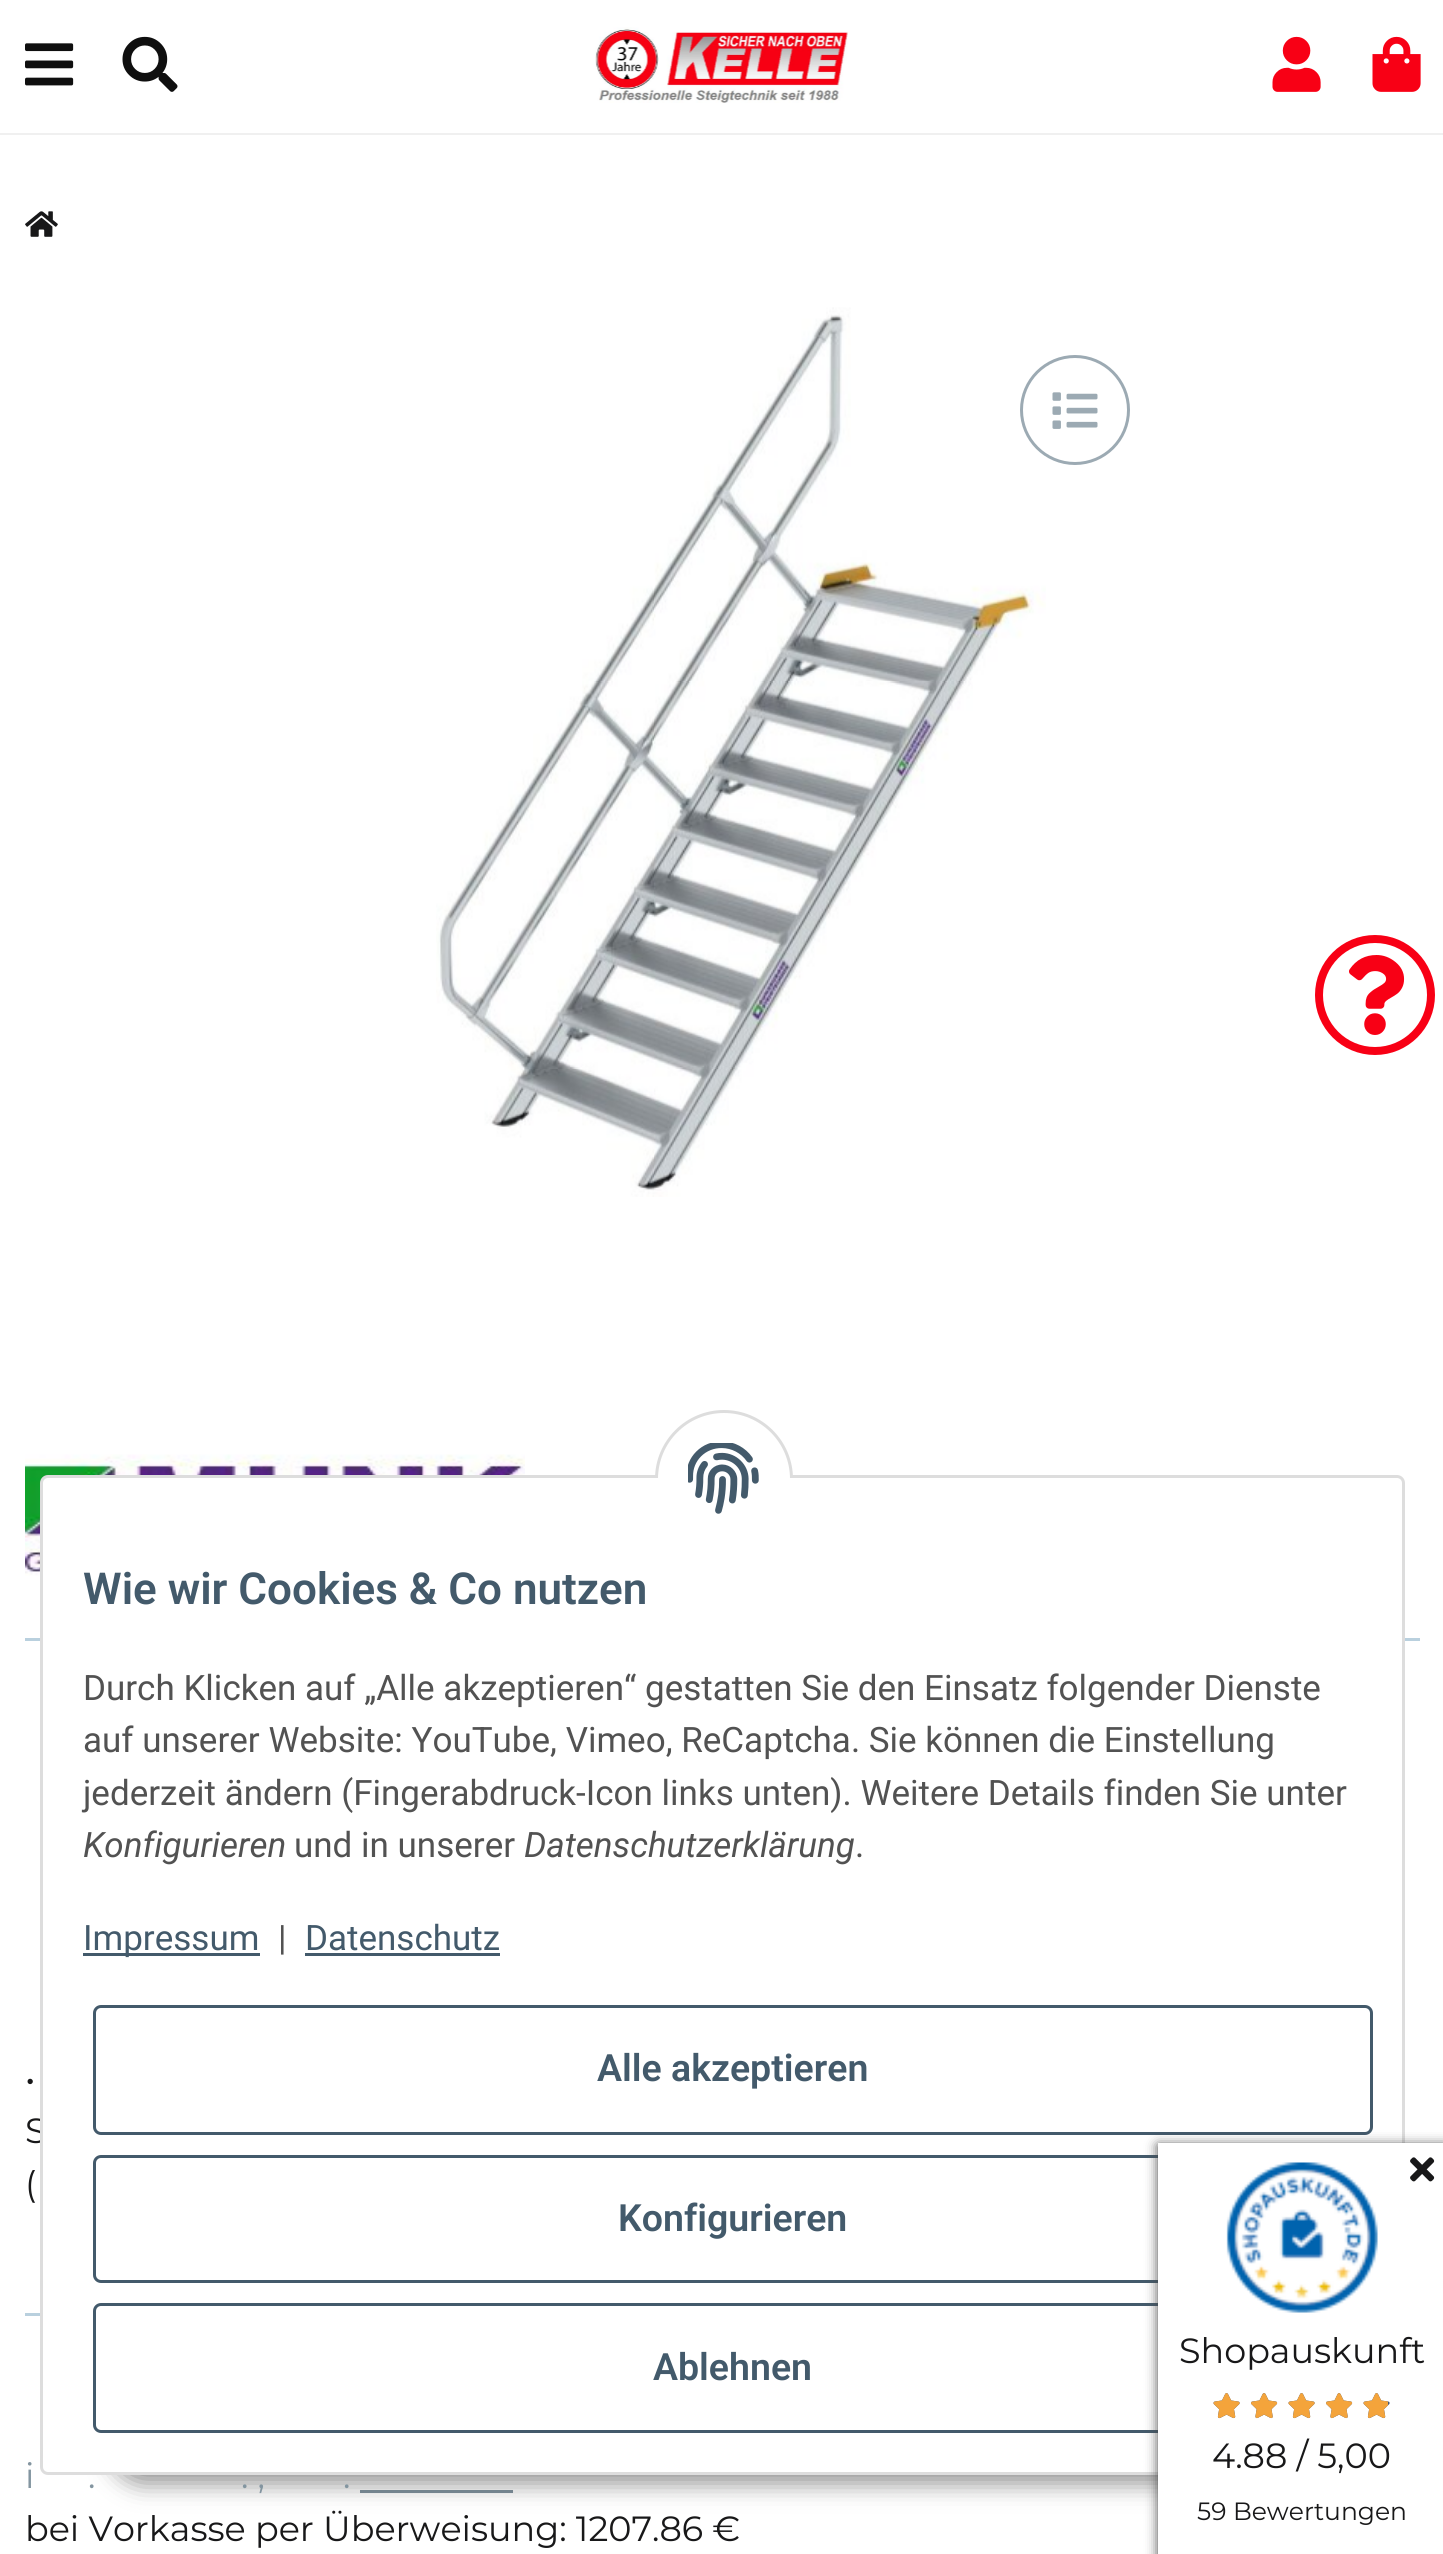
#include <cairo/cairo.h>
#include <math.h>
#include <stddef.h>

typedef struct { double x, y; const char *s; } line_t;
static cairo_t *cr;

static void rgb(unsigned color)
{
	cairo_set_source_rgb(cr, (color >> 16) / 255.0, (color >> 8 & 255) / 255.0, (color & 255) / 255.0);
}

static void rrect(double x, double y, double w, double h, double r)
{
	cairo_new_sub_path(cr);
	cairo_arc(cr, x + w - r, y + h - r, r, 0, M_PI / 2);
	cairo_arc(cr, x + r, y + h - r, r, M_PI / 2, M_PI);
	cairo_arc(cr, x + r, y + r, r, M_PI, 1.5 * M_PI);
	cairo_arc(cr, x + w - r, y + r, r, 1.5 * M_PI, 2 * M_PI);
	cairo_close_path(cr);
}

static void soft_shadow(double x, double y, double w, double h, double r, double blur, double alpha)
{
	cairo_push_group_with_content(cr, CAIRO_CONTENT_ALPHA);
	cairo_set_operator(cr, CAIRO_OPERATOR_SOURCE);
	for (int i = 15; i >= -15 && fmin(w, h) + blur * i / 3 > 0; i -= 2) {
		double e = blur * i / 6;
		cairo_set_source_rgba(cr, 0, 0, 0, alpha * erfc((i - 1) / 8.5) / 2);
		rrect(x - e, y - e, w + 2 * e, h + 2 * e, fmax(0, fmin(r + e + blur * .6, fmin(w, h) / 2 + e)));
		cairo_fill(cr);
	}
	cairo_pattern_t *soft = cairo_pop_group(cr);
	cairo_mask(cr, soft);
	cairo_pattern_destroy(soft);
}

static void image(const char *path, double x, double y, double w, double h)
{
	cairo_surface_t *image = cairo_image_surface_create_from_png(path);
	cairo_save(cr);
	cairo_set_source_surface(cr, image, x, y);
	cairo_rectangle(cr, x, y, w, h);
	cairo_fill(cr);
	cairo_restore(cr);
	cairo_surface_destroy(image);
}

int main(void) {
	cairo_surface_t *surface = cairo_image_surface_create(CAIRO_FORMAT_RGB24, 1443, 2554);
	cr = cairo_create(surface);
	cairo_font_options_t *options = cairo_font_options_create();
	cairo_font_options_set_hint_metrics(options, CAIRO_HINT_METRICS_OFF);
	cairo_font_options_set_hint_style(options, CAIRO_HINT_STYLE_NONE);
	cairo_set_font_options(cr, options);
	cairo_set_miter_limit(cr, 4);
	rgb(0xffffff);
	cairo_paint(cr);
	rgb(0xf0f0f0);
	cairo_rectangle(cr, 0, 133, 1443, 2);
	cairo_fill(cr);
	image("img/1.png", 25, 43, 49, 43);
	image("img/2.png", 122, 36, 56, 56);
	image("img/3.png", 595, 27, 253, 76);
	image("img/4.png", 1272, 36, 49, 56);
	image("img/5.png", 1372, 36, 49, 56);
	cairo_arc(cr, 1375, 995, 56, 0, 2 * M_PI);
	rgb(0xf80015);
	cairo_set_line_width(cr, 8);
	cairo_stroke(cr);
	image("img/6.png", 1349, 955, 56, 80);
	rgb(0x8395a0);
	cairo_rectangle(cr, 360, 2490, 153, 3);
	cairo_fill(cr);
	rgb(0x000000);
	soft_shadow(110, 2403, 1225, 80, 40, 12.5, 0.45);
	image("img/8.png", 25, 211, 33, 26);
	image("img/9.png", 436, 307, 610, 890);
	cairo_arc(cr, 1075, 410, 53.5, 0, 2 * M_PI);
	rgb(0x9caab3);
	cairo_set_line_width(cr, 3);
	cairo_stroke(cr);
	image("img/10.png", 1052, 392, 46, 37);
	rgb(0xb9d0de);
	cairo_rectangle(cr, 25, 1638, 1395, 3);
	cairo_fill(cr);
	image("img/11.png", 25, 1454, 500, 122);
	cairo_rectangle(cr, 25, 2313, 15, 3);
	cairo_fill(cr);
	cairo_select_font_face(cr, "Montserrat", CAIRO_FONT_SLANT_NORMAL, CAIRO_FONT_WEIGHT_NORMAL);
	cairo_set_font_size(cr, 35);
	rgb(0x181819);
	cairo_move_to(cr, 25, 2091);
	cairo_show_text(cr, "•");
	cairo_move_to(cr, 25, 2143);
	cairo_show_text(cr, "S");
	rgb(0xffffff);
	rrect(41.5, 1476.5, 1362, 997, 6.5);
	cairo_fill_preserve(cr);
	rgb(0xdddddd);
	cairo_stroke(cr);
	rgb(0xffffff);
	cairo_arc(cr, 724, 1479, 67.5, 0, 2 * M_PI);
	cairo_fill_preserve(cr);
	rgb(0xdddddd);
	cairo_stroke(cr);
	rgb(0xffffff);
	cairo_rectangle(cr, 655, 1478, 138, 70);
	cairo_fill(cr);
	image("img/7.png", 688, 1443, 71, 71);
	rrect(94.5, 2304.5, 1277, 127, 6.5);
	rgb(0x435a6b);
	cairo_stroke(cr);
	cairo_select_font_face(cr, "Roboto SemiBold", CAIRO_FONT_SLANT_NORMAL, CAIRO_FONT_WEIGHT_NORMAL);
	cairo_set_font_size(cr, 37.5);
	cairo_move_to(cr, 653, 2380);
	cairo_show_text(cr, "Ablehnen");
	rrect(94.5, 2156.5, 1277, 125, 6.5);
	cairo_stroke(cr);
	cairo_move_to(cr, 618, 2231);
	cairo_show_text(cr, "Konfigurieren");
	rrect(94.5, 2006.5, 1277, 127, 6.5);
	cairo_stroke(cr);
	cairo_move_to(cr, 597, 2081);
	cairo_show_text(cr, "Alle akzeptieren");
	cairo_select_font_face(cr, "Roboto", CAIRO_FONT_SLANT_NORMAL, CAIRO_FONT_WEIGHT_NORMAL);
	cairo_set_font_size(cr, 35);
	cairo_move_to(cr, 305, 1950);
	cairo_show_text(cr, "Datenschutz");
	cairo_rectangle(cr, 305, 1953, 195, 3);
	cairo_fill(cr);
	rgb(0x525252);
	cairo_move_to(cr, 278, 1950);
	cairo_show_text(cr, "|");
	rgb(0x435a6b);
	cairo_rectangle(cr, 83, 1953, 177, 3);
	cairo_fill(cr);
	cairo_move_to(cr, 83, 1950);
	cairo_show_text(cr, "Impressum");
	rgb(0x525252);
	cairo_move_to(cr, 855, 1857);
	cairo_show_text(cr, ".");
	cairo_select_font_face(cr, "Roboto", CAIRO_FONT_SLANT_ITALIC, CAIRO_FONT_WEIGHT_NORMAL);
	cairo_move_to(cr, 524, 1857);
	cairo_show_text(cr, "Datenschutzerklärung");
	cairo_select_font_face(cr, "Roboto", CAIRO_FONT_SLANT_NORMAL, CAIRO_FONT_WEIGHT_NORMAL);
	cairo_move_to(cr, 294, 1857);
	cairo_show_text(cr, "und in unserer");
	cairo_select_font_face(cr, "Roboto", CAIRO_FONT_SLANT_ITALIC, CAIRO_FONT_WEIGHT_NORMAL);
	cairo_move_to(cr, 83, 1857);
	cairo_show_text(cr, "Konfigurieren");
	cairo_select_font_face(cr, "Roboto", CAIRO_FONT_SLANT_NORMAL, CAIRO_FONT_WEIGHT_NORMAL);
	{
		static const line_t items[] = {
			{83, 1805, "jederzeit ändern (Fingerabdruck-Icon links unten). Weitere Details finden Sie unter"},
			{83, 1752, "auf unserer Website: YouTube, Vimeo, ReCaptcha. Sie können die Einstellung"},
			{83, 1700, "Durch Klicken auf „Alle akzeptieren“ gestatten Sie den Einsatz folgender Dienste"},
		};
		for (size_t i = 0; i < sizeof items / sizeof *items; i++) {
			cairo_move_to(cr, items[i].x, items[i].y);
			cairo_show_text(cr, items[i].s);
		}
	}
	cairo_select_font_face(cr, "Roboto SemiBold", CAIRO_FONT_SLANT_NORMAL, CAIRO_FONT_WEIGHT_NORMAL);
	cairo_set_font_size(cr, 44);
	rgb(0x435a6b);
	cairo_move_to(cr, 83, 1604);
	cairo_show_text(cr, "Wie wir Cookies & Co nutzen");
	cairo_select_font_face(cr, "Montserrat", CAIRO_FONT_SLANT_NORMAL, CAIRO_FONT_WEIGHT_NORMAL);
	cairo_set_font_size(cr, 35);
	rgb(0x181819);
	cairo_move_to(cr, 25, 2196);
	cairo_show_text(cr, "(");
	rgb(0x8395a0);
	{
		static const line_t items[] = {
			{25, 2488, "i"},
			{88, 2488, "."},
			{241, 2488, ". ,"},
			{343, 2488, "."},
		};
		for (size_t i = 0; i < sizeof items / sizeof *items; i++) {
			cairo_move_to(cr, items[i].x, items[i].y);
			cairo_show_text(cr, items[i].s);
		}
	}
	rgb(0x181819);
	cairo_move_to(cr, 25, 2541);
	cairo_show_text(cr, "bei Vorkasse per Überweisung: 1207.86 €");
	rgb(0x4a4a4a);
	soft_shadow(1158, 2145, 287, 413, 0, 6, 1);
	rgb(0xffffff);
	cairo_rectangle(cr, 1158, 2143, 285, 411);
	cairo_fill(cr);
	image("img/12.png", 1226, 2162, 152, 151);
	image("img/13.png", 1410, 2157, 25, 25);
	rgb(0x181819);
	cairo_move_to(cr, 1179, 2363);
	cairo_show_text(cr, "Shopauskunft");
	image("img/14.png", 1213, 2393, 27, 26);
	image("img/15.png", 1213, 2393, 27, 25);
	image("img/16.png", 1251, 2393, 27, 26);
	image("img/17.png", 1251, 2393, 27, 25);
	image("img/14.png", 1288, 2393, 27, 26);
	image("img/15.png", 1288, 2393, 27, 25);
	image("img/16.png", 1326, 2393, 27, 26);
	image("img/17.png", 1326, 2393, 27, 25);
	image("img/14.png", 1363, 2393, 27, 26);
	image("img/18.png", 1363, 2393, 25, 25);
	cairo_move_to(cr, 1212, 2468);
	cairo_show_text(cr, "4.88 / 5,00");
	cairo_set_font_size(cr, 25);
	cairo_move_to(cr, 1197, 2520);
	cairo_show_text(cr, "59 Bewertungen");
	cairo_surface_write_to_png(surface, "page.png");
	cairo_font_options_destroy(options);
	cairo_destroy(cr);
	cairo_surface_destroy(surface);
	return 0;
}
